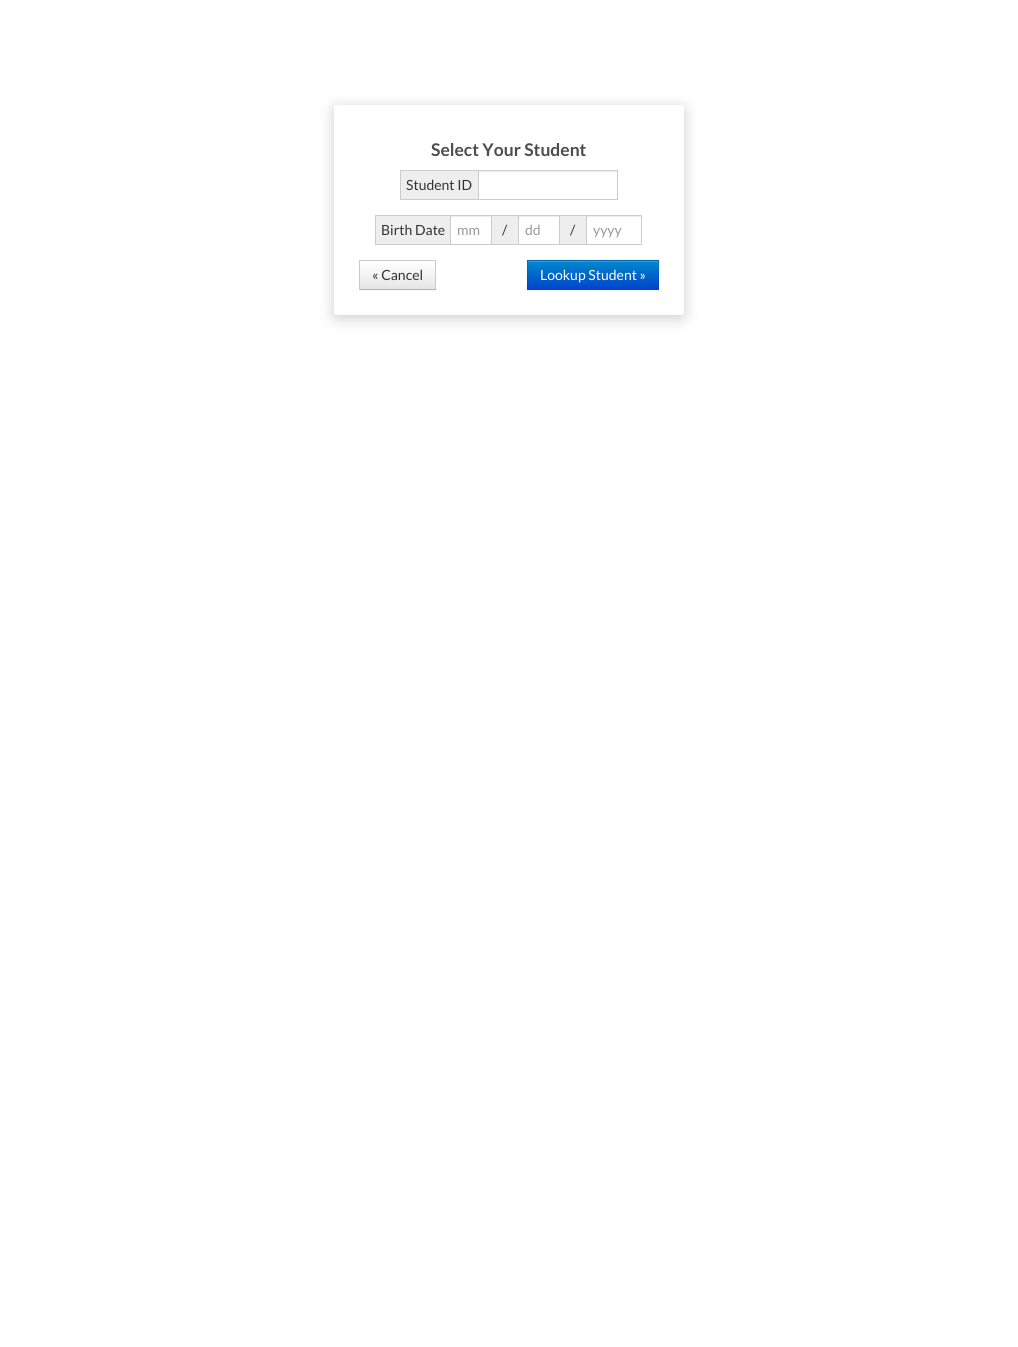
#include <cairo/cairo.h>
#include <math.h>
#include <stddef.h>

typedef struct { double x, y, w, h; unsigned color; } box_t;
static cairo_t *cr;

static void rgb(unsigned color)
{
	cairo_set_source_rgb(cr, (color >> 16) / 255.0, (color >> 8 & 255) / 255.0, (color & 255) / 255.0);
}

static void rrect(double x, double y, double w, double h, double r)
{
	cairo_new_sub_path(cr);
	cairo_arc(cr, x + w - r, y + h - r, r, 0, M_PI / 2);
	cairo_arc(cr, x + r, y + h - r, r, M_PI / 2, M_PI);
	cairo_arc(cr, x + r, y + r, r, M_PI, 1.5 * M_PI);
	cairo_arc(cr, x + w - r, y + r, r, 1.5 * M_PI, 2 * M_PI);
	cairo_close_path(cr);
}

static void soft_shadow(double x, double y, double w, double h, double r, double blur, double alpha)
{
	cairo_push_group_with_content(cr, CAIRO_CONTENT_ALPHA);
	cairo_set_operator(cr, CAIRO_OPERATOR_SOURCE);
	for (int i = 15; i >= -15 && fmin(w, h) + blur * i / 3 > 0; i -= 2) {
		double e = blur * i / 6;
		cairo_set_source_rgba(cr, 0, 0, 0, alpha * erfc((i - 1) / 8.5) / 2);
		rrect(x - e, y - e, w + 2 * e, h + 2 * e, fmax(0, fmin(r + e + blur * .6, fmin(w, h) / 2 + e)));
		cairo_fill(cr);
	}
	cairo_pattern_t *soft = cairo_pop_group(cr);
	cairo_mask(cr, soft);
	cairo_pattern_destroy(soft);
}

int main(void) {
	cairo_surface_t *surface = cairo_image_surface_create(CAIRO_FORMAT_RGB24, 1018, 1347);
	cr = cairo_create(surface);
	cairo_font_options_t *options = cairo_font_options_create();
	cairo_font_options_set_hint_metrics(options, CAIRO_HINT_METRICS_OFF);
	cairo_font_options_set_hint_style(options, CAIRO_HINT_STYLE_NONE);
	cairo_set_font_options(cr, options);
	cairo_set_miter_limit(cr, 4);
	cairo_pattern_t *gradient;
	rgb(0xffffff);
	cairo_paint(cr);
	cairo_save(cr);
	cairo_set_fill_rule(cr, CAIRO_FILL_RULE_EVEN_ODD);
	cairo_new_path(cr);
	cairo_move_to(cr, 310, 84);
	cairo_line_to(cr, 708, 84);
	cairo_line_to(cr, 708, 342);
	cairo_line_to(cr, 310, 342);
	cairo_close_path(cr);
	cairo_move_to(cr, 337, 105);
	cairo_line_to(cr, 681, 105);
	cairo_curve_to(cr, 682.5, 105, 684, 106.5, 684, 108);
	cairo_line_to(cr, 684, 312);
	cairo_curve_to(cr, 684, 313.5, 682.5, 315, 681, 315);
	cairo_line_to(cr, 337, 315);
	cairo_curve_to(cr, 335.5, 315, 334, 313.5, 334, 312);
	cairo_line_to(cr, 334, 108);
	cairo_curve_to(cr, 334, 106.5, 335.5, 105, 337, 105);
	cairo_close_path(cr);
	cairo_clip(cr);
	rgb(0x000000);
	soft_shadow(334, 108, 350, 210, 3, 7.5, 0.2);
	cairo_restore(cr);
	cairo_set_source_rgba(cr, 1, 1, 1, 0.9);
	rrect(334, 105, 350, 210, 3);
	cairo_fill(cr);
	rgb(0xeeeeee);
	cairo_rectangle(cr, 400.5, 170.5, 78, 29);
	cairo_fill_preserve(cr);
	rgb(0xcccccc);
	cairo_set_line_width(cr, 1);
	cairo_stroke(cr);
	rgb(0xececec);
	cairo_rectangle(cr, 479, 171, 138, 1);
	cairo_fill(cr);
	cairo_rectangle(cr, 478.5, 170.5, 139, 29);
	rgb(0xcccccc);
	cairo_stroke(cr);
	rgb(0xeeeeee);
	cairo_rectangle(cr, 375.5, 215.5, 75, 29);
	cairo_fill_preserve(cr);
	rgb(0xcccccc);
	cairo_stroke(cr);
	rgb(0xececec);
	cairo_rectangle(cr, 451, 216, 40, 1);
	cairo_fill(cr);
	rgb(0xeeeeee);
	cairo_rectangle(cr, 491.5, 215.5, 27, 29);
	cairo_fill_preserve(cr);
	rgb(0xcccccc);
	cairo_stroke(cr);
	cairo_rectangle(cr, 450.5, 215.5, 41, 29);
	cairo_stroke(cr);
	rgb(0xececec);
	cairo_rectangle(cr, 519, 216, 40, 1);
	cairo_fill(cr);
	rgb(0xeeeeee);
	cairo_rectangle(cr, 559.5, 215.5, 27, 29);
	cairo_fill_preserve(cr);
	rgb(0xcccccc);
	cairo_stroke(cr);
	cairo_rectangle(cr, 518.5, 215.5, 41, 29);
	cairo_stroke(cr);
	rgb(0xececec);
	cairo_rectangle(cr, 587, 216, 54, 1);
	cairo_fill(cr);
	cairo_rectangle(cr, 586.5, 215.5, 55, 29);
	rgb(0xcccccc);
	cairo_stroke(cr);
	rgb(0x000000);
	soft_shadow(359, 261, 77, 30, 0, 1, 0.05);
	gradient = cairo_pattern_create_linear(398, 261, 398, 289);
	cairo_pattern_add_color_stop_rgba(gradient, 0, 1, 1, 1, 1);
	cairo_pattern_add_color_stop_rgba(gradient, 1, 0.902, 0.902, 0.902, 1);
	cairo_set_source(cr, gradient);
	cairo_pattern_destroy(gradient);
	cairo_rectangle(cr, 360, 261, 75, 28);
	cairo_fill(cr);
	{
		static const box_t items[] = {
			{359, 260, 77, 1, 0xcccccc},
			{435, 260, 1, 30, 0xcccccc},
			{359, 289, 77, 1, 0xb3b3b3},
			{359, 260, 1, 30, 0xcccccc},
		};
		for (size_t i = 0; i < sizeof items / sizeof *items; i++) {
			rgb(items[i].color);
			cairo_rectangle(cr, items[i].x, items[i].y, items[i].w, items[i].h);
			cairo_fill(cr);
		}
	}
	rgb(0x000000);
	soft_shadow(527, 261, 132, 30, 0, 1, 0.05);
	rgb(0x006dcc);
	cairo_rectangle(cr, 527, 260, 132, 30);
	cairo_fill(cr);
	gradient = cairo_pattern_create_linear(593, 261, 593, 289);
	cairo_pattern_add_color_stop_rgba(gradient, 0, 0, 0.533, 0.8, 1);
	cairo_pattern_add_color_stop_rgba(gradient, 1, 0, 0.267, 0.8, 1);
	cairo_set_source(cr, gradient);
	cairo_pattern_destroy(gradient);
	cairo_rectangle(cr, 527, 261, 132, 28);
	cairo_fill(cr);
	rgb(0x339fd6);
	cairo_rectangle(cr, 528, 261, 130, 1);
	cairo_fill(cr);
	rgb(0x0062b8);
	cairo_new_path(cr);
	cairo_move_to(cr, 527, 260);
	cairo_line_to(cr, 659, 260);
	cairo_line_to(cr, 658, 261);
	cairo_line_to(cr, 528, 261);
	cairo_close_path(cr);
	cairo_fill(cr);
	cairo_set_source_rgba(cr, 0, 0, 0, 0.1);
	cairo_new_path(cr);
	cairo_move_to(cr, 659, 260);
	cairo_line_to(cr, 659, 290);
	cairo_line_to(cr, 658, 289);
	cairo_line_to(cr, 658, 261);
	cairo_close_path(cr);
	cairo_fill(cr);
	cairo_set_source_rgba(cr, 0, 0, 0, 0.25);
	cairo_new_path(cr);
	cairo_move_to(cr, 659, 290);
	cairo_line_to(cr, 527, 290);
	cairo_line_to(cr, 528, 289);
	cairo_line_to(cr, 658, 289);
	cairo_close_path(cr);
	cairo_fill(cr);
	cairo_set_source_rgba(cr, 0, 0, 0, 0.1);
	cairo_new_path(cr);
	cairo_move_to(cr, 527, 290);
	cairo_line_to(cr, 527, 260);
	cairo_line_to(cr, 528, 261);
	cairo_line_to(cr, 528, 289);
	cairo_close_path(cr);
	cairo_fill(cr);
	cairo_select_font_face(cr, "Lato", CAIRO_FONT_SLANT_NORMAL, CAIRO_FONT_WEIGHT_BOLD);
	cairo_set_font_size(cr, 17.5);
	rgb(0x4d4d4d);
	cairo_move_to(cr, 431, 156);
	cairo_show_text(cr, "Select Your Student");
	cairo_select_font_face(cr, "Lato", CAIRO_FONT_SLANT_NORMAL, CAIRO_FONT_WEIGHT_NORMAL);
	cairo_set_font_size(cr, 14);
	rgb(0x333333);
	cairo_move_to(cr, 406, 190);
	cairo_show_text(cr, "Student ID");
	cairo_move_to(cr, 381, 235);
	cairo_show_text(cr, "Birth Date");
	rgb(0x999999);
	cairo_move_to(cr, 457, 235);
	cairo_show_text(cr, "mm");
	rgb(0x333333);
	cairo_move_to(cr, 502, 235);
	cairo_show_text(cr, "/");
	rgb(0x999999);
	cairo_move_to(cr, 525, 235);
	cairo_show_text(cr, "dd");
	rgb(0x333333);
	cairo_move_to(cr, 570, 235);
	cairo_show_text(cr, "/");
	rgb(0x999999);
	cairo_move_to(cr, 593, 235);
	cairo_show_text(cr, "yyyy");
	rgb(0x333333);
	cairo_move_to(cr, 372, 280);
	cairo_show_text(cr, "« Cancel");
	rgb(0xffffff);
	cairo_move_to(cr, 540, 280);
	cairo_show_text(cr, "Lookup Student »");
	cairo_surface_write_to_png(surface, "page.png");
	cairo_font_options_destroy(options);
	cairo_destroy(cr);
	cairo_surface_destroy(surface);
	return 0;
}
